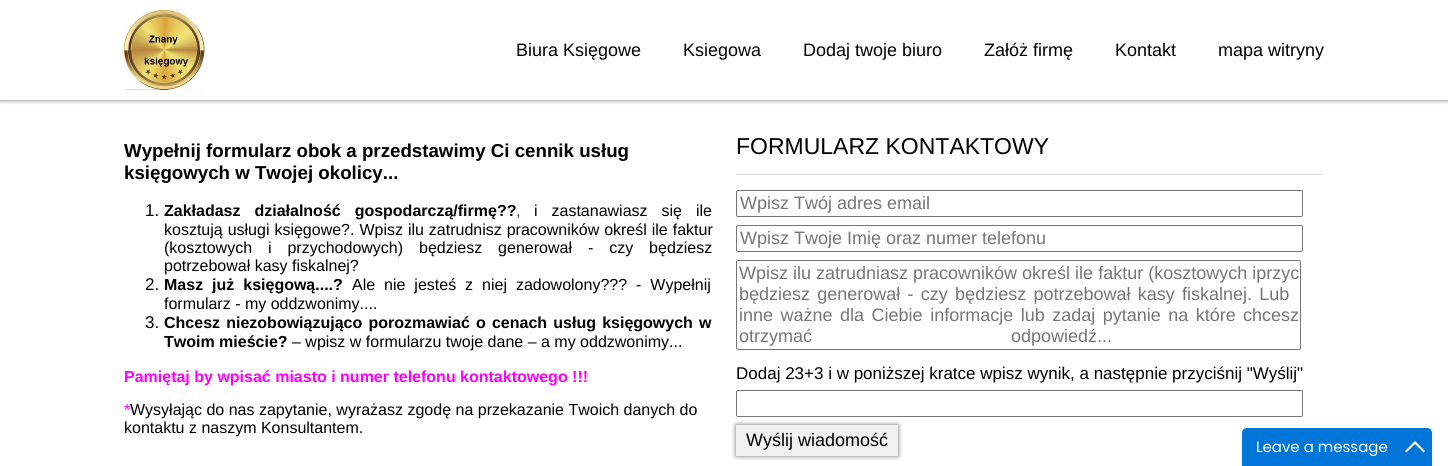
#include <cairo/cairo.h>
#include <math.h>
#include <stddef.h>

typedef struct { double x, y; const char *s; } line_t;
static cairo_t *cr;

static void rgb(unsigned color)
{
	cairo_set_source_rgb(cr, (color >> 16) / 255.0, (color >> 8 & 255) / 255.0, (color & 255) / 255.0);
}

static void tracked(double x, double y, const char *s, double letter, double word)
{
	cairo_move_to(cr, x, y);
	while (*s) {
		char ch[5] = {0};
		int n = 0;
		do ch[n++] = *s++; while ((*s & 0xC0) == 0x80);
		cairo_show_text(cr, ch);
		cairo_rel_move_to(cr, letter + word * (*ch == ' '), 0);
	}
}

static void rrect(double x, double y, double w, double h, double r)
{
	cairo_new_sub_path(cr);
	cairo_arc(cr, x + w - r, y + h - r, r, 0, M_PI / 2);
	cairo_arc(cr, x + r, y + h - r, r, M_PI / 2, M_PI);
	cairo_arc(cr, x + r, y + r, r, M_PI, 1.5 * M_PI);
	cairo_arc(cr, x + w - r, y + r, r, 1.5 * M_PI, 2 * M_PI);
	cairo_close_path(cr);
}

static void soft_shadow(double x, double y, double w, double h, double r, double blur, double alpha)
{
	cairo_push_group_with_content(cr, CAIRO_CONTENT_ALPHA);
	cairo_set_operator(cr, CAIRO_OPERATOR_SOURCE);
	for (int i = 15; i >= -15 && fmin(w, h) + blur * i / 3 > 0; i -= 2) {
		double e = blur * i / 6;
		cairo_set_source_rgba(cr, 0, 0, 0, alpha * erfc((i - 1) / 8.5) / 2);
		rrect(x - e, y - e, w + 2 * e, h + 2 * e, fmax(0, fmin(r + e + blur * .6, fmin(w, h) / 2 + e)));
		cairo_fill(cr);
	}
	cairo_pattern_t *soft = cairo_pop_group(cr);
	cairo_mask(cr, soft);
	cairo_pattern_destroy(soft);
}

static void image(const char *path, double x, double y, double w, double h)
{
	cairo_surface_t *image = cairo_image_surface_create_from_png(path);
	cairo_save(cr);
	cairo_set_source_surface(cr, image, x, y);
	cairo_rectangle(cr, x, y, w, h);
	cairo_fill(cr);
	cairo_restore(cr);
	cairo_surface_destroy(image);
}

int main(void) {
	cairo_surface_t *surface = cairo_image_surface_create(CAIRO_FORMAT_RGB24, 1448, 466);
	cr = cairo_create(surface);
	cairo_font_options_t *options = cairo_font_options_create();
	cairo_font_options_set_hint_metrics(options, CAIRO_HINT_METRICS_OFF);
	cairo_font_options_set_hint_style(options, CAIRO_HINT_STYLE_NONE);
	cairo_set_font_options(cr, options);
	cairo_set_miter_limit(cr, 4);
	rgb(0xffffff);
	cairo_paint(cr);
	cairo_save(cr);
	cairo_rectangle(cr, 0, 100, 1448, 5);
	cairo_clip(cr);
	rgb(0x6c6c6c);
	soft_shadow(0, 0, 1448, 100, 0, 2.5, 1);
	cairo_restore(cr);
	image("img/1.png", 124, 10, 81, 80);
	rgb(0xdedede);
	cairo_rectangle(cr, 736, 174, 588, 1);
	cairo_fill(cr);
	rrect(736.5, 190.5, 566, 26, 1.5);
	rgb(0x767676);
	cairo_set_line_width(cr, 1);
	cairo_stroke(cr);
	rrect(736.5, 225.5, 566, 26, 1.5);
	cairo_stroke(cr);
	rrect(736.5, 260.5, 564, 89, 1.5);
	cairo_stroke(cr);
	rrect(736.5, 390.5, 566, 26, 1.5);
	cairo_stroke(cr);
	rgb(0x6c6c6c);
	soft_shadow(736, 425, 162, 31, 0, 2.5, 1);
	rgb(0xf0f0f0);
	cairo_rectangle(cr, 736, 425, 162, 31);
	cairo_fill(cr);
	rgb(0x0275d8);
	cairo_new_path(cr);
	cairo_move_to(cr, 1247, 428);
	cairo_line_to(cr, 1427, 428);
	cairo_curve_to(cr, 1430, 428, 1432, 430, 1432, 433);
	cairo_line_to(cr, 1432, 466);
	cairo_line_to(cr, 1242, 466);
	cairo_line_to(cr, 1242, 433);
	cairo_curve_to(cr, 1242, 430, 1244, 428, 1247, 428);
	cairo_close_path(cr);
	cairo_fill(cr);
	rgb(0xffffff);
	cairo_new_path(cr);
	cairo_move_to(cr, 1415, 441);
	cairo_line_to(cr, 1425, 451);
	cairo_line_to(cr, 1423.5, 452.5);
	cairo_line_to(cr, 1415, 444);
	cairo_line_to(cr, 1406.5, 452.5);
	cairo_line_to(cr, 1405, 451);
	cairo_close_path(cr);
	cairo_fill(cr);
	cairo_select_font_face(cr, "Liberation Sans", CAIRO_FONT_SLANT_NORMAL, CAIRO_FONT_WEIGHT_NORMAL);
	cairo_set_font_size(cr, 18);
	rgb(0x000000);
	{
		static const line_t items[] = {
			{516, 56, "Biura Księgowe"},
			{683, 56, "Ksiegowa"},
			{803, 56, "Dodaj twoje biuro"},
			{984, 56, "Załóż firmę"},
			{1115, 56, "Kontakt"},
			{1218, 56, "mapa witryny"},
		};
		for (size_t i = 0; i < sizeof items / sizeof *items; i++) {
			cairo_move_to(cr, items[i].x, items[i].y);
			cairo_show_text(cr, items[i].s);
		}
	}
	cairo_select_font_face(cr, "Liberation Sans", CAIRO_FONT_SLANT_NORMAL, CAIRO_FONT_WEIGHT_BOLD);
	cairo_set_font_size(cr, 18.7);
	cairo_move_to(cr, 124, 157);
	cairo_show_text(cr, "Wypełnij formularz obok a przedstawimy Ci cennik usług");
	cairo_move_to(cr, 124, 179);
	cairo_show_text(cr, "księgowych w Twojej okolicy...");
	cairo_select_font_face(cr, "Liberation Sans", CAIRO_FONT_SLANT_NORMAL, CAIRO_FONT_WEIGHT_NORMAL);
	cairo_set_font_size(cr, 17);
	cairo_move_to(cr, 145, 216);
	cairo_show_text(cr, "1.");
	cairo_select_font_face(cr, "Liberation Sans", CAIRO_FONT_SLANT_NORMAL, CAIRO_FONT_WEIGHT_BOLD);
	cairo_set_font_size(cr, 16);
	tracked(164, 216, "Zakładasz działalność gospodarczą/firmę?\077", 0, 9.5);
	cairo_select_font_face(cr, "Liberation Sans", CAIRO_FONT_SLANT_NORMAL, CAIRO_FONT_WEIGHT_NORMAL);
	rgb(0x333399);
	cairo_move_to(cr, 516, 216);
	cairo_show_text(cr, ",");
	rgb(0x000000);
	tracked(534, 216, "i zastanawiasz się ile", 0, 9.5);
	tracked(164, 235, "kosztują usługi księgowe?. Wpisz ilu zatrudnisz pracowników określ ile faktur", 0, 0.5);
	tracked(164, 253, "(kosztowych i przychodowych) będziesz generował - czy będziesz", 0, 11.5);
	cairo_move_to(cr, 164, 271);
	cairo_show_text(cr, "potrzebował kasy fiskalnej?");
	cairo_set_font_size(cr, 17);
	cairo_move_to(cr, 145, 290);
	cairo_show_text(cr, "2.");
	cairo_select_font_face(cr, "Liberation Sans", CAIRO_FONT_SLANT_NORMAL, CAIRO_FONT_WEIGHT_BOLD);
	cairo_set_font_size(cr, 16);
	tracked(164, 290, "Masz już księgową....?", 0, 4.5);
	cairo_select_font_face(cr, "Liberation Sans", CAIRO_FONT_SLANT_NORMAL, CAIRO_FONT_WEIGHT_NORMAL);
	tracked(352, 290, "Ale nie jesteś z niej zadowolony?\077? - Wypełnij", 0, 4.5);
	cairo_move_to(cr, 164, 309);
	cairo_show_text(cr, "formularz - my oddzwonimy....");
	cairo_set_font_size(cr, 17);
	cairo_move_to(cr, 145, 328);
	cairo_show_text(cr, "3.");
	cairo_select_font_face(cr, "Liberation Sans", CAIRO_FONT_SLANT_NORMAL, CAIRO_FONT_WEIGHT_BOLD);
	cairo_set_font_size(cr, 16);
	tracked(164, 328, "Chcesz niezobowiązująco porozmawiać o cenach usług księgowych w", 0, 1.75);
	cairo_move_to(cr, 164, 347);
	cairo_show_text(cr, "Twoim mieście?");
	cairo_select_font_face(cr, "Liberation Sans", CAIRO_FONT_SLANT_NORMAL, CAIRO_FONT_WEIGHT_NORMAL);
	cairo_move_to(cr, 292, 347);
	cairo_show_text(cr, "– wpisz w formularzu twoje dane – a my oddzwonimy...");
	cairo_select_font_face(cr, "Liberation Sans", CAIRO_FONT_SLANT_NORMAL, CAIRO_FONT_WEIGHT_BOLD);
	rgb(0xff00ff);
	cairo_move_to(cr, 124, 382);
	cairo_show_text(cr, "Pamiętaj by wpisać miasto i numer telefonu kontaktowego !!!");
	cairo_select_font_face(cr, "Liberation Sans", CAIRO_FONT_SLANT_NORMAL, CAIRO_FONT_WEIGHT_NORMAL);
	cairo_move_to(cr, 124, 415);
	cairo_show_text(cr, "*");
	rgb(0x000000);
	cairo_move_to(cr, 130, 415);
	cairo_show_text(cr, "Wysyłając do nas zapytanie, wyrażasz zgodę na przekazanie Twoich danych do");
	cairo_move_to(cr, 124, 433);
	cairo_show_text(cr, "kontaktu z naszym Konsultantem.");
	cairo_set_font_size(cr, 23);
	cairo_move_to(cr, 736, 154);
	cairo_show_text(cr, "FORMULARZ KONTAKTOWY");
	cairo_set_font_size(cr, 18);
	rgb(0x757575);
	{
		static const line_t items[] = {
			{740, 209, "Wpisz Twój adres email"},
			{740, 244, "Wpisz Twoje Imię oraz numer telefonu"},
			{739, 279, "Wpisz ilu zatrudniasz pracowników określ ile faktur (kosztowych iprzyc"},
		};
		for (size_t i = 0; i < sizeof items / sizeof *items; i++) {
			cairo_move_to(cr, items[i].x, items[i].y);
			cairo_show_text(cr, items[i].s);
		}
	}
	tracked(739, 300, "będziesz generował - czy będziesz potrzebował kasy fiskalnej. Lub", 0, 2.25);
	tracked(739, 321, "inne ważne dla Ciebie informacje lub zadaj pytanie na które", 0, 2.5);
	cairo_move_to(cr, 1243, 321);
	cairo_show_text(cr, "chcesz");
	tracked(739, 342, "otrzymać odpowiedź...", 0, 194);
	cairo_set_font_size(cr, 17);
	rgb(0x000000);
	cairo_move_to(cr, 736, 379);
	cairo_show_text(cr, "Dodaj 23+3 i w poniższej kratce wpisz wynik, a następnie przyciśnij \"Wyślij\"");
	cairo_set_font_size(cr, 18);
	cairo_move_to(cr, 746, 446);
	cairo_show_text(cr, "Wyślij wiadomość");
	cairo_select_font_face(cr, "Poppins", CAIRO_FONT_SLANT_NORMAL, CAIRO_FONT_WEIGHT_NORMAL);
	cairo_set_font_size(cr, 15);
	rgb(0xffffff);
	cairo_move_to(cr, 1256, 452);
	cairo_show_text(cr, "Leave a message");
	cairo_surface_write_to_png(surface, "page.png");
	cairo_font_options_destroy(options);
	cairo_destroy(cr);
	cairo_surface_destroy(surface);
	return 0;
}
